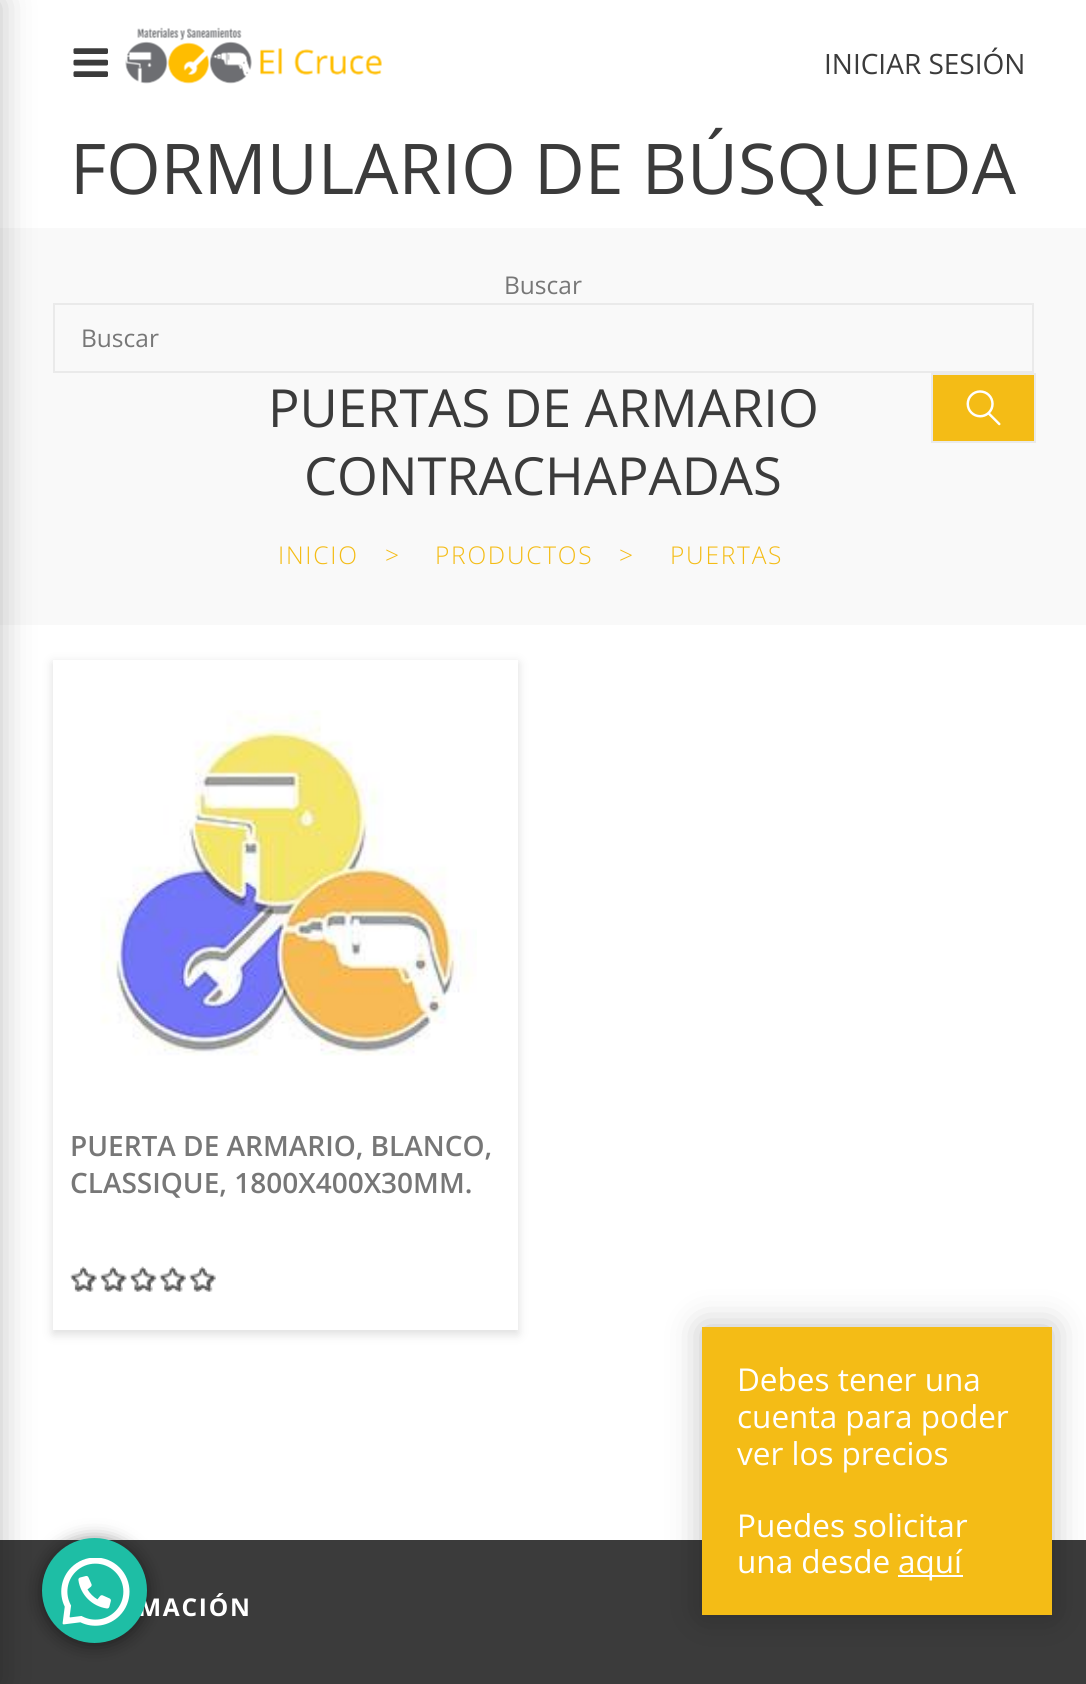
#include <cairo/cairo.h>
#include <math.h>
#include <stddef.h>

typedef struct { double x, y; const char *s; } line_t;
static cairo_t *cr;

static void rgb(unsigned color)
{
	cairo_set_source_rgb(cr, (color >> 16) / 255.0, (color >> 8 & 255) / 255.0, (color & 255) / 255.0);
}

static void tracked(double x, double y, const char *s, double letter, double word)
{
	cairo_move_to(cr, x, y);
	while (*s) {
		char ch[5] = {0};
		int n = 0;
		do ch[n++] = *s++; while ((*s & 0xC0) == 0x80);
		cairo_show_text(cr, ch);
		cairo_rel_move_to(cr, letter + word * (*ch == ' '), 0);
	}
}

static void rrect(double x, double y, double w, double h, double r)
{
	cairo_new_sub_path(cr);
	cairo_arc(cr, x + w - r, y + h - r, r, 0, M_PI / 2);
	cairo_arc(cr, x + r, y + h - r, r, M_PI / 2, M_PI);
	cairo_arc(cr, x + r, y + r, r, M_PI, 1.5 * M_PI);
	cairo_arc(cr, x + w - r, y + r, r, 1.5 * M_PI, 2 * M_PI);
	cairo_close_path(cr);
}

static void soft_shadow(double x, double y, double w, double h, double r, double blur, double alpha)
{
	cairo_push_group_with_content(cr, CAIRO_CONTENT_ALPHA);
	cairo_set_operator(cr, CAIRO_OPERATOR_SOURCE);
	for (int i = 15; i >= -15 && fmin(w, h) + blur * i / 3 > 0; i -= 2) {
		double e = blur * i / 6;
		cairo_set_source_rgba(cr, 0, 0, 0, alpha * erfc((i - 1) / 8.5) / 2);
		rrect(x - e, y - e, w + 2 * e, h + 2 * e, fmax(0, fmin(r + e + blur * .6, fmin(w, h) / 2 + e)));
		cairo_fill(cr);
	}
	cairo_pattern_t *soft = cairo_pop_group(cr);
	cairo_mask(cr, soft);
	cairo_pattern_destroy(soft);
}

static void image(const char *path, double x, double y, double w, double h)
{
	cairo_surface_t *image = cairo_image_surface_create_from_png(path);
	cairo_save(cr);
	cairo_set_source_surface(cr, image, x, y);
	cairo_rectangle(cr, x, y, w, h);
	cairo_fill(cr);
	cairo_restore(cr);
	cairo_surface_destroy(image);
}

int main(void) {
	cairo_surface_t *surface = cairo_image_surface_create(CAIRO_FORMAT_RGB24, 1086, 1684);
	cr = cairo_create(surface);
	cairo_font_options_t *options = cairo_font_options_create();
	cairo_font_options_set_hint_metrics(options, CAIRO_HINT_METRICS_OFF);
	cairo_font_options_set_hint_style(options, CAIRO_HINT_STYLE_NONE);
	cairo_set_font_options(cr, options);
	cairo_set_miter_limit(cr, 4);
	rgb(0xffffff);
	cairo_paint(cr);
	image("img/1.png", 73, 48, 35, 29);
	image("img/2.png", 125, 27, 257, 57);
	rgb(0xf9f9f9);
	cairo_rectangle(cr, 0, 228, 1086, 397);
	cairo_fill(cr);
	cairo_rectangle(cr, 54, 304, 979, 68);
	rgb(0xeaeaea);
	cairo_stroke(cr);
	rgb(0xf4bc16);
	cairo_rectangle(cr, 932, 374, 103, 68);
	cairo_fill_preserve(cr);
	rgb(0xeaeaea);
	cairo_stroke(cr);
	image("img/3.png", 966, 390, 35, 36);
	cairo_save(cr);
	cairo_set_fill_rule(cr, CAIRO_FILL_RULE_EVEN_ODD);
	cairo_new_path(cr);
	cairo_move_to(cr, 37, 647);
	cairo_line_to(cr, 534, 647);
	cairo_line_to(cr, 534, 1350);
	cairo_line_to(cr, 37, 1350);
	cairo_close_path(cr);
	cairo_move_to(cr, 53, 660);
	cairo_line_to(cr, 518, 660);
	cairo_line_to(cr, 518, 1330);
	cairo_line_to(cr, 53, 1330);
	cairo_close_path(cr);
	cairo_clip(cr);
	rgb(0xdddddd);
	soft_shadow(53, 663, 465, 671, 0, 5, 1);
	cairo_restore(cr);
	image("img/4.png", 100, 710, 377, 346);
	image("img/5.png", 70, 1266, 27, 26);
	image("img/6.png", 70, 1266, 27, 26);
	image("img/7.png", 99, 1266, 28, 26);
	image("img/8.png", 100, 1266, 27, 26);
	image("img/9.png", 129, 1266, 28, 26);
	image("img/10.png", 130, 1266, 27, 26);
	image("img/11.png", 159, 1266, 27, 26);
	image("img/12.png", 159, 1266, 27, 26);
	image("img/13.png", 189, 1266, 27, 26);
	image("img/14.png", 189, 1266, 27, 26);
	rgb(0x3b3b3b);
	cairo_rectangle(cr, 0, 1540, 1086, 144);
	cairo_fill(cr);
	rgb(0x000000);
	soft_shadow(42, 1540, 105, 105, 52.5, 9, 0.5);
	soft_shadow(702, 1327, 350, 288, 0, 17.5, 0.25);
	rgb(0xf4bc16);
	cairo_rectangle(cr, 702, 1327, 350, 288);
	cairo_fill(cr);
	rgb(0xffffff);
	cairo_rectangle(cr, 898, 1575, 65, 2);
	cairo_fill(cr);
	cairo_select_font_face(cr, "Open Sans", CAIRO_FONT_SLANT_NORMAL, CAIRO_FONT_WEIGHT_NORMAL);
	cairo_set_font_size(cr, 28);
	rgb(0x3b3b3b);
	cairo_move_to(cr, 824, 74);
	cairo_show_text(cr, "INICIAR SESIÓN");
	cairo_set_font_size(cr, 70);
	cairo_move_to(cr, 70, 194);
	cairo_show_text(cr, "FORMULARIO DE BÚSQUEDA");
	cairo_set_font_size(cr, 24.5);
	rgb(0x777777);
	cairo_move_to(cr, 504, 294);
	cairo_show_text(cr, "Buscar");
	cairo_move_to(cr, 81, 347);
	cairo_show_text(cr, "Buscar");
	cairo_set_font_size(cr, 52.5);
	rgb(0x3b3b3b);
	cairo_move_to(cr, 268, 427);
	cairo_show_text(cr, "PUERTAS DE ARMARIO");
	cairo_move_to(cr, 304, 495);
	cairo_show_text(cr, "CONTRACHAPADAS");
	cairo_select_font_face(cr, "Open Sans Light", CAIRO_FONT_SLANT_NORMAL, CAIRO_FONT_WEIGHT_NORMAL);
	cairo_set_font_size(cr, 24.5);
	rgb(0xf4bc16);
	{
		static const line_t items[] = {
			{278, 564, "INICIO"},
			{385, 564, ">"},
			{435, 564, "PRODUCTOS"},
			{619, 564, ">"},
			{670, 564, "PUERTAS"},
		};
		for (size_t i = 0; i < sizeof items / sizeof *items; i++) {
			tracked(items[i].x, items[i].y, items[i].s, 1.75, 0);
		}
	}
	cairo_select_font_face(cr, "Open Sans SemiBold", CAIRO_FONT_SLANT_NORMAL, CAIRO_FONT_WEIGHT_NORMAL);
	cairo_set_font_size(cr, 28);
	rgb(0x777777);
	cairo_move_to(cr, 70, 1156);
	cairo_show_text(cr, "PUERTA DE ARMARIO, BLANCO,");
	cairo_move_to(cr, 70, 1193);
	cairo_show_text(cr, "CLASSIQUE, 1800X400X30MM.");
	cairo_select_font_face(cr, "Open Sans", CAIRO_FONT_SLANT_NORMAL, CAIRO_FONT_WEIGHT_BOLD);
	cairo_set_font_size(cr, 24.5);
	rgb(0xffffff);
	tracked(138, 1616, "MACIÓN", 1.75, 0);
	rgb(0x1ebea5);
	cairo_new_path(cr);
	cairo_arc(cr, 94.5, 1590.5, 52.5, 0, 2 * M_PI);
	cairo_fill(cr);
	rgb(0x000000);
	soft_shadow(-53, 0, 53, 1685, 0, 17.5, 0.25);
	image("img/15.png", 61, 1558, 69, 68);
	cairo_select_font_face(cr, "Open Sans", CAIRO_FONT_SLANT_NORMAL, CAIRO_FONT_WEIGHT_NORMAL);
	cairo_set_font_size(cr, 31.5);
	rgb(0xffffff);
	{
		static const line_t items[] = {
			{737, 1391, "Debes tener una"},
			{737, 1428, "cuenta para poder"},
			{737, 1465, "ver los precios"},
			{737, 1537, "Puedes solicitar"},
			{737, 1573, "una desde"},
			{898, 1573, "aquí"},
		};
		for (size_t i = 0; i < sizeof items / sizeof *items; i++) {
			cairo_move_to(cr, items[i].x, items[i].y);
			cairo_show_text(cr, items[i].s);
		}
	}
	cairo_surface_write_to_png(surface, "page.png");
	cairo_font_options_destroy(options);
	cairo_destroy(cr);
	cairo_surface_destroy(surface);
	return 0;
}
